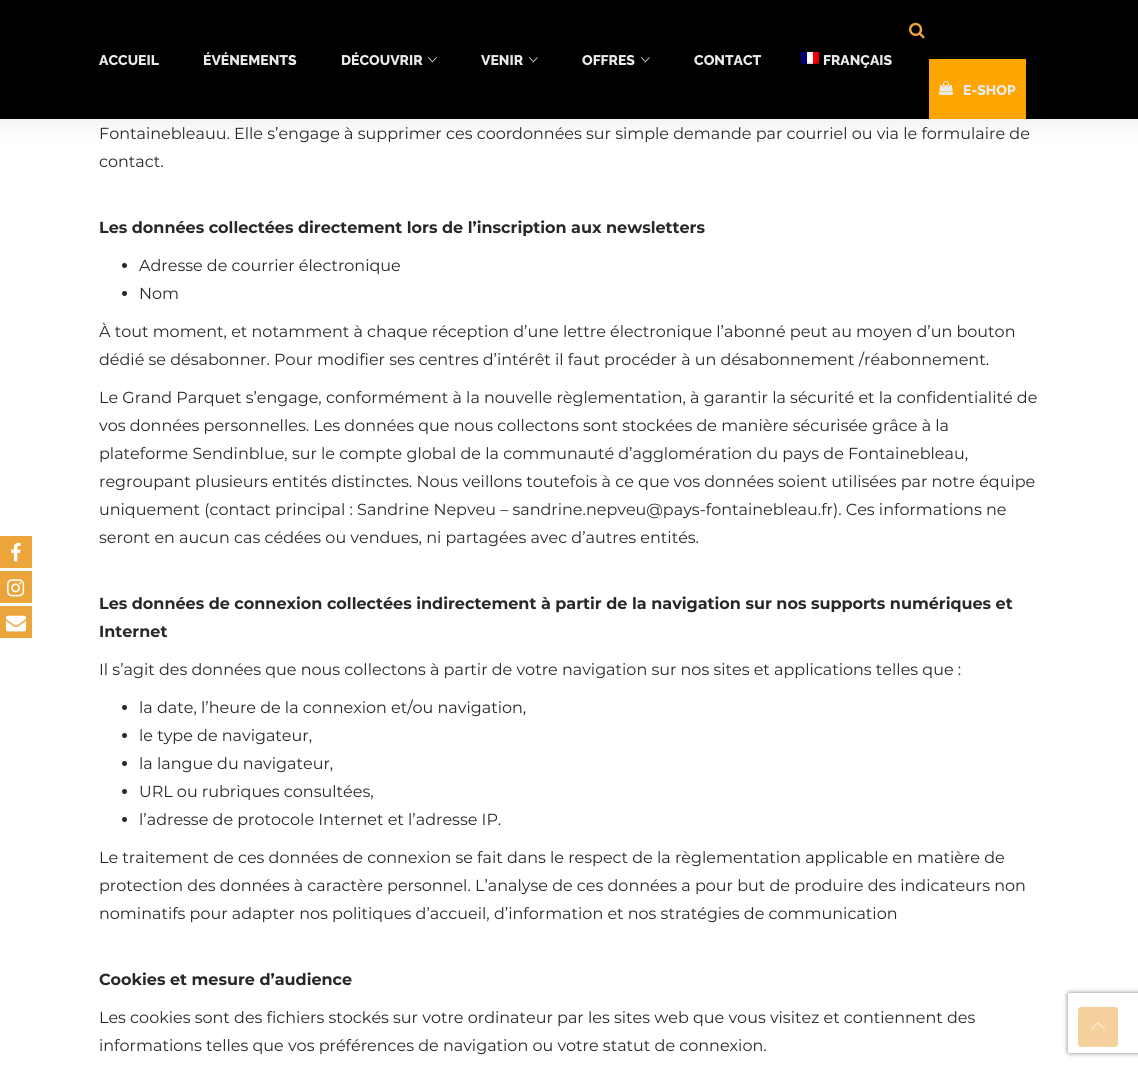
#include <cairo/cairo.h>
#include <math.h>
#include <stddef.h>

typedef struct { double x, y; const char *s; } line_t;
static cairo_t *cr;

static void rgb(unsigned color)
{
	cairo_set_source_rgb(cr, (color >> 16) / 255.0, (color >> 8 & 255) / 255.0, (color & 255) / 255.0);
}

static void rrect(double x, double y, double w, double h, double r)
{
	cairo_new_sub_path(cr);
	cairo_arc(cr, x + w - r, y + h - r, r, 0, M_PI / 2);
	cairo_arc(cr, x + r, y + h - r, r, M_PI / 2, M_PI);
	cairo_arc(cr, x + r, y + r, r, M_PI, 1.5 * M_PI);
	cairo_arc(cr, x + w - r, y + r, r, 1.5 * M_PI, 2 * M_PI);
	cairo_close_path(cr);
}

static void soft_shadow(double x, double y, double w, double h, double r, double blur, double alpha)
{
	cairo_push_group_with_content(cr, CAIRO_CONTENT_ALPHA);
	cairo_set_operator(cr, CAIRO_OPERATOR_SOURCE);
	for (int i = 15; i >= -15 && fmin(w, h) + blur * i / 3 > 0; i -= 2) {
		double e = blur * i / 6;
		cairo_set_source_rgba(cr, 0, 0, 0, alpha * erfc((i - 1) / 8.5) / 2);
		rrect(x - e, y - e, w + 2 * e, h + 2 * e, fmax(0, fmin(r + e + blur * .6, fmin(w, h) / 2 + e)));
		cairo_fill(cr);
	}
	cairo_pattern_t *soft = cairo_pop_group(cr);
	cairo_mask(cr, soft);
	cairo_pattern_destroy(soft);
}

static void image(const char *path, double x, double y, double w, double h)
{
	cairo_surface_t *image = cairo_image_surface_create_from_png(path);
	cairo_save(cr);
	cairo_set_source_surface(cr, image, x, y);
	cairo_rectangle(cr, x, y, w, h);
	cairo_fill(cr);
	cairo_restore(cr);
	cairo_surface_destroy(image);
}

int main(void) {
	cairo_surface_t *surface = cairo_image_surface_create(CAIRO_FORMAT_RGB24, 1138, 1067);
	cr = cairo_create(surface);
	cairo_font_options_t *options = cairo_font_options_create();
	cairo_font_options_set_hint_metrics(options, CAIRO_HINT_METRICS_OFF);
	cairo_font_options_set_hint_style(options, CAIRO_HINT_STYLE_NONE);
	cairo_set_font_options(cr, options);
	cairo_set_miter_limit(cr, 4);
	rgb(0xffffff);
	cairo_paint(cr);
	rgb(0xeba53a);
	cairo_rectangle(cr, 0, 536, 32, 32);
	cairo_fill(cr);
	image("img/1.png", 11, 542, 10, 20);
	cairo_rectangle(cr, 0, 571, 32, 32);
	cairo_fill(cr);
	image("img/2.png", 7, 579, 18, 18);
	cairo_rectangle(cr, 0, 606, 32, 32);
	cairo_fill(cr);
	image("img/3.png", 6, 615, 20, 17);
	rgb(0x000000);
	soft_shadow(-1, -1, 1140, 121, 0, 12, 0.1);
	rgb(0x000000);
	cairo_rectangle(cr, 0, 0, 1138, 119);
	cairo_fill(cr);
	image("img/4.png", 428, 57, 9, 6);
	image("img/4.png", 529, 57, 9, 6);
	image("img/4.png", 641, 57, 9, 6);
	image("img/5.png", 801, 52, 18, 12);
	image("img/6.png", 909, 22, 16, 17);
	rgb(0xffa500);
	cairo_rectangle(cr, 929, 59, 97, 60);
	cairo_fill(cr);
	image("img/7.png", 939, 81, 14, 14);
	rgb(0x282828);
	cairo_arc(cr, 124.5, 265.5, 2.5, 0, 2 * M_PI);
	cairo_fill(cr);
	cairo_arc(cr, 124.5, 293.5, 2.5, 0, 2 * M_PI);
	cairo_fill(cr);
	cairo_arc(cr, 124.5, 707.5, 2.5, 0, 2 * M_PI);
	cairo_fill(cr);
	cairo_arc(cr, 124.5, 735.5, 2.5, 0, 2 * M_PI);
	cairo_fill(cr);
	cairo_arc(cr, 124.5, 763.5, 2.5, 0, 2 * M_PI);
	cairo_fill(cr);
	cairo_arc(cr, 124.5, 791.5, 2.5, 0, 2 * M_PI);
	cairo_fill(cr);
	cairo_arc(cr, 124.5, 819.5, 2.5, 0, 2 * M_PI);
	cairo_fill(cr);
	cairo_save(cr);
	cairo_set_fill_rule(cr, CAIRO_FILL_RULE_EVEN_ODD);
	cairo_new_path(cr);
	cairo_move_to(cr, 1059, 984);
	cairo_line_to(cr, 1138, 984);
	cairo_line_to(cr, 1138, 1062);
	cairo_line_to(cr, 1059, 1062);
	cairo_close_path(cr);
	cairo_move_to(cr, 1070, 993);
	cairo_line_to(cr, 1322, 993);
	cairo_curve_to(cr, 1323, 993, 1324, 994, 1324, 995);
	cairo_line_to(cr, 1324, 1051);
	cairo_curve_to(cr, 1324, 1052, 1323, 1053, 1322, 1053);
	cairo_line_to(cr, 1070, 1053);
	cairo_curve_to(cr, 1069, 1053, 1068, 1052, 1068, 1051);
	cairo_line_to(cr, 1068, 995);
	cairo_curve_to(cr, 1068, 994, 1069, 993, 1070, 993);
	cairo_close_path(cr);
	cairo_clip(cr);
	rgb(0x808080);
	soft_shadow(1068, 993, 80, 60, 2, 2.5, 1);
	cairo_restore(cr);
	rgb(0xf5d29d);
	rrect(1078, 1007, 40, 40, 3);
	cairo_fill(cr);
	rgb(0xffffff);
	cairo_new_path(cr);
	cairo_move_to(cr, 1091, 1029);
	cairo_line_to(cr, 1098, 1022);
	cairo_line_to(cr, 1098.5, 1022.5);
	cairo_line_to(cr, 1091.5, 1029.5);
	cairo_close_path(cr);
	cairo_fill(cr);
	cairo_new_path(cr);
	cairo_move_to(cr, 1097.5, 1022.5);
	cairo_line_to(cr, 1098, 1022);
	cairo_line_to(cr, 1105, 1029);
	cairo_line_to(cr, 1104.5, 1029.5);
	cairo_close_path(cr);
	cairo_fill(cr);
	cairo_select_font_face(cr, "Raleway Thin", CAIRO_FONT_SLANT_NORMAL, CAIRO_FONT_WEIGHT_NORMAL);
	cairo_set_font_size(cr, 14);
	rgb(0xeaeaeb);
	{
		static const line_t items[] = {
			{99, 65, "ACCUEIL"},
			{203, 65, "ÉVÉNEMENTS"},
			{341, 65, "DÉCOUVRIR"},
			{481, 65, "VENIR"},
			{582, 65, "OFFRES"},
			{694, 65, "CONTACT"},
			{823, 65, "FRANÇAIS"},
			{963, 95, "E-SHOP"},
		};
		for (size_t i = 0; i < sizeof items / sizeof *items; i++) {
			cairo_move_to(cr, items[i].x, items[i].y);
			cairo_show_text(cr, items[i].s);
		}
	}
	cairo_select_font_face(cr, "Montserrat", CAIRO_FONT_SLANT_NORMAL, CAIRO_FONT_WEIGHT_NORMAL);
	cairo_set_font_size(cr, 16);
	rgb(0x282828);
	cairo_move_to(cr, 99, 139);
	cairo_show_text(cr, "Fontainebleauu. Elle s’engage à supprimer ces coordonnées sur simple demande par courriel ou via le formulaire de");
	cairo_move_to(cr, 99, 167);
	cairo_show_text(cr, "contact.");
	cairo_select_font_face(cr, "Montserrat", CAIRO_FONT_SLANT_NORMAL, CAIRO_FONT_WEIGHT_BOLD);
	cairo_move_to(cr, 99, 233);
	cairo_show_text(cr, "Les données collectées directement lors de l’inscription aux newsletters");
	cairo_select_font_face(cr, "Montserrat", CAIRO_FONT_SLANT_NORMAL, CAIRO_FONT_WEIGHT_NORMAL);
	{
		static const line_t items[] = {
			{139, 271, "Adresse de courrier électronique"},
			{139, 299, "Nom"},
			{99, 337, "À tout moment, et notamment à chaque réception d’une lettre électronique l’abonné peut au moyen d’un bouton"},
			{99, 365, "dédié se désabonner. Pour modifier ses centres d’intérêt il faut procéder à un désabonnement /réabonnement."},
			{99, 403, "Le Grand Parquet s’engage, conformément à la nouvelle règlementation, à garantir la sécurité et la confidentialité de"},
			{99, 431, "vos données personnelles. Les données que nous collectons sont stockées de manière sécurisée grâce à la"},
			{99, 459, "plateforme Sendinblue, sur le compte global de la communauté d’agglomération du pays de Fontainebleau,"},
			{99, 487, "regroupant plusieurs entités distinctes. Nous veillons toutefois à ce que vos données soient utilisées par notre équipe"},
			{99, 515, "uniquement (contact principal : Sandrine Nepveu – sandrine.nepveu@pays-fontainebleau.fr). Ces informations ne"},
			{99, 543, "seront en aucun cas cédées ou vendues, ni partagées avec d’autres entités."},
		};
		for (size_t i = 0; i < sizeof items / sizeof *items; i++) {
			cairo_move_to(cr, items[i].x, items[i].y);
			cairo_show_text(cr, items[i].s);
		}
	}
	cairo_select_font_face(cr, "Montserrat", CAIRO_FONT_SLANT_NORMAL, CAIRO_FONT_WEIGHT_BOLD);
	cairo_move_to(cr, 99, 609);
	cairo_show_text(cr, "Les données de connexion collectées indirectement à partir de la navigation sur nos supports numériques et");
	cairo_move_to(cr, 99, 637);
	cairo_show_text(cr, "Internet");
	cairo_select_font_face(cr, "Montserrat", CAIRO_FONT_SLANT_NORMAL, CAIRO_FONT_WEIGHT_NORMAL);
	{
		static const line_t items[] = {
			{99, 675, "Il s’agit des données que nous collectons à partir de votre navigation sur nos sites et applications telles que :"},
			{139, 713, "la date, l’heure de la connexion et/ou navigation,"},
			{139, 741, "le type de navigateur,"},
			{139, 769, "la langue du navigateur,"},
			{139, 797, "URL ou rubriques consultées,"},
			{139, 825, "l’adresse de protocole Internet et l’adresse IP."},
			{99, 863, "Le traitement de ces données de connexion se fait dans le respect de la règlementation applicable en matière de"},
			{99, 891, "protection des données à caractère personnel. L’analyse de ces données a pour but de produire des indicateurs non"},
			{99, 919, "nominatifs pour adapter nos politiques d’accueil, d’information et nos stratégies de communication"},
		};
		for (size_t i = 0; i < sizeof items / sizeof *items; i++) {
			cairo_move_to(cr, items[i].x, items[i].y);
			cairo_show_text(cr, items[i].s);
		}
	}
	cairo_select_font_face(cr, "Montserrat", CAIRO_FONT_SLANT_NORMAL, CAIRO_FONT_WEIGHT_BOLD);
	cairo_move_to(cr, 99, 985);
	cairo_show_text(cr, "Cookies et mesure d’audience");
	cairo_select_font_face(cr, "Montserrat", CAIRO_FONT_SLANT_NORMAL, CAIRO_FONT_WEIGHT_NORMAL);
	cairo_move_to(cr, 99, 1023);
	cairo_show_text(cr, "Les cookies sont des fichiers stockés sur votre ordinateur par les sites web que vous visitez et contiennent des");
	cairo_move_to(cr, 99, 1051);
	cairo_show_text(cr, "informations telles que vos préférences de navigation ou votre statut de connexion.");
	cairo_surface_write_to_png(surface, "page.png");
	cairo_font_options_destroy(options);
	cairo_destroy(cr);
	cairo_surface_destroy(surface);
	return 0;
}
